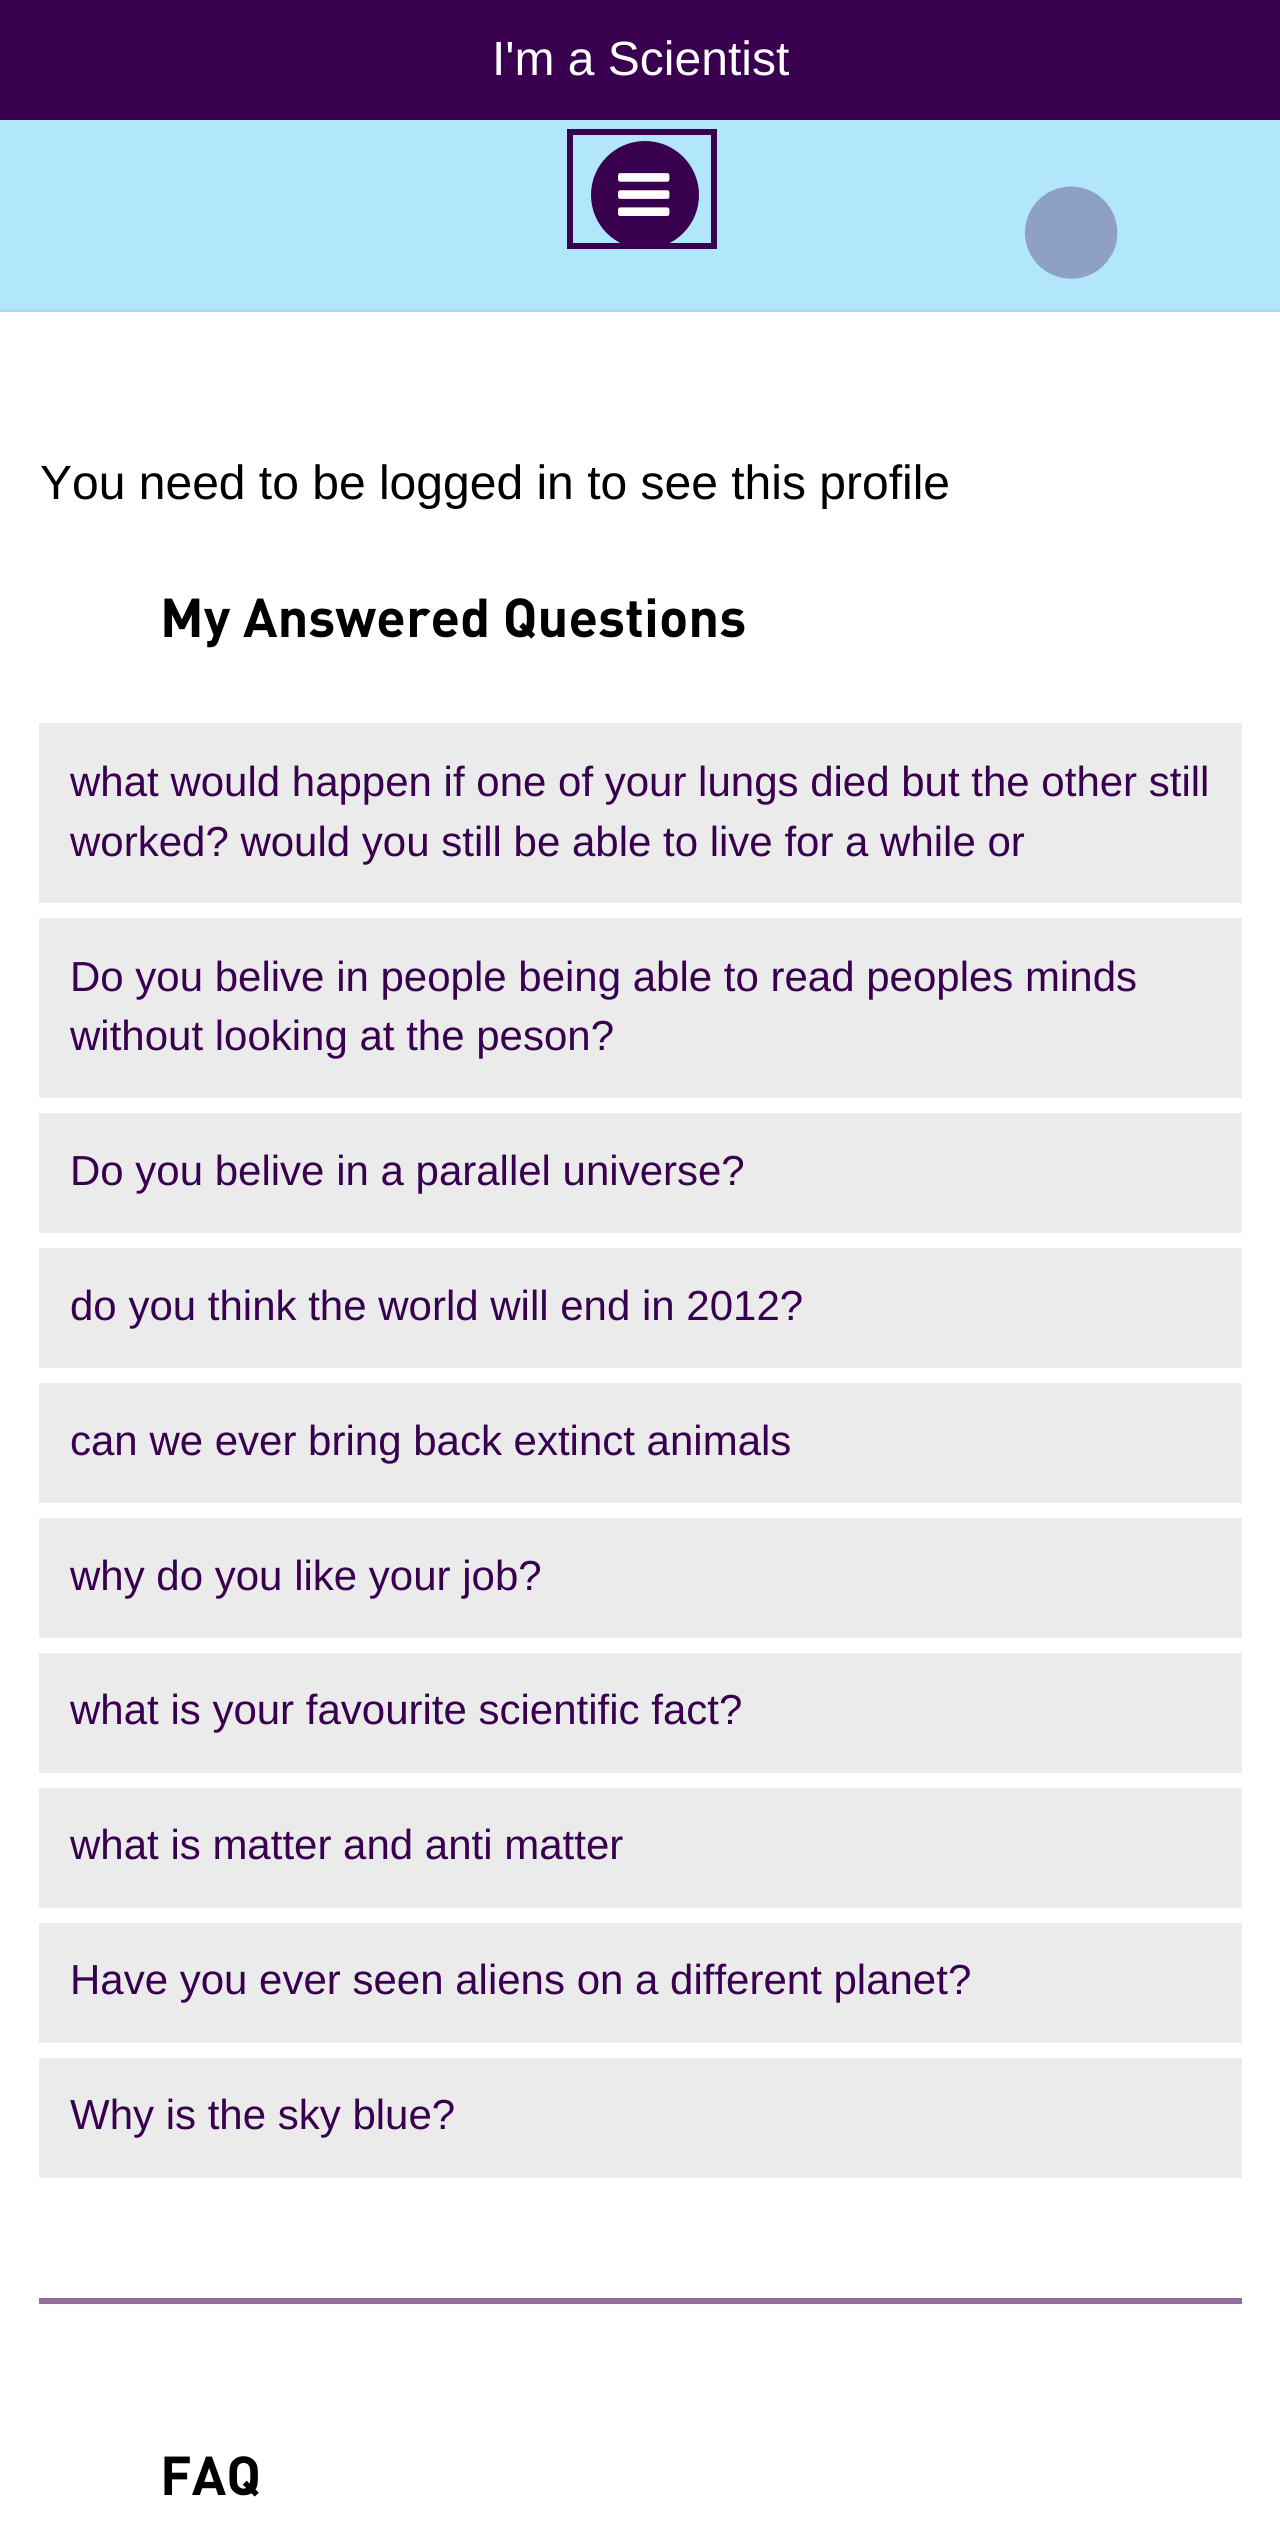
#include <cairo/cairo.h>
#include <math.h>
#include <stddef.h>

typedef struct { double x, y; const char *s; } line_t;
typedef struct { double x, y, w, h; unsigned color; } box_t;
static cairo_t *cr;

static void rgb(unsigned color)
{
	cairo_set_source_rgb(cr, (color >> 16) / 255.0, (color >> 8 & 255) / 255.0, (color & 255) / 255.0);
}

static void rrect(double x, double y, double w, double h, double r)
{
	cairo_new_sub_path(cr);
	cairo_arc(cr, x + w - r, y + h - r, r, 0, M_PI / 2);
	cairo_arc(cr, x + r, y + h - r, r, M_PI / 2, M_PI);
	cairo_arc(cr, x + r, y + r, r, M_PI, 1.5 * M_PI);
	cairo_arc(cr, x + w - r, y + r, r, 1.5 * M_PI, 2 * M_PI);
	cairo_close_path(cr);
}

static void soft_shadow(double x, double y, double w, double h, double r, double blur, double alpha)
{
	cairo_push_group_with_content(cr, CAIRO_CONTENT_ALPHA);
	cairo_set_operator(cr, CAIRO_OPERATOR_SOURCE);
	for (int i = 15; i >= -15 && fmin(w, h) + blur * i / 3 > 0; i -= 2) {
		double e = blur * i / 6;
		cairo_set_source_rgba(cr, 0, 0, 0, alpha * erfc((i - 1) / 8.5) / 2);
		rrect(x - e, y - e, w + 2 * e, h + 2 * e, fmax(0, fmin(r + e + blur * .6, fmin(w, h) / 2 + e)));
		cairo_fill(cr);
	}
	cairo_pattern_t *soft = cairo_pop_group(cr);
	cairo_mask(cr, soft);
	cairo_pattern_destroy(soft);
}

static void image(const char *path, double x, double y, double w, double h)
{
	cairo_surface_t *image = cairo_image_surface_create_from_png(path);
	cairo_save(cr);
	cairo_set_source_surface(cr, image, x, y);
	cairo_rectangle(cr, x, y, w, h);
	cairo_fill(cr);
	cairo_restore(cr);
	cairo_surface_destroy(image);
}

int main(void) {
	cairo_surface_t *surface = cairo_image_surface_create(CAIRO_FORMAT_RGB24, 1280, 2536);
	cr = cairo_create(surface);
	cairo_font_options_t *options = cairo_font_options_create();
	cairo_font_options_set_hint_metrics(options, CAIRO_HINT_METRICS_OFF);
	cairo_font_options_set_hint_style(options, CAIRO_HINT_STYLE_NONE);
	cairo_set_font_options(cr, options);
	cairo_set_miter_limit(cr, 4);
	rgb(0xb2e6fb);
	cairo_paint(cr);
	image("img/1.png", 1024, 186, 94, 93);
	rgb(0x390050);
	cairo_rectangle(cr, 0, 0, 1280, 120);
	cairo_fill(cr);
	cairo_rectangle(cr, 570, 132, 144, 114);
	cairo_set_line_width(cr, 6);
	cairo_stroke(cr);
	cairo_arc(cr, 645, 195, 54, 0, 2 * M_PI);
	cairo_fill(cr);
	image("img/2.png", 618, 173, 52, 43);
	rgb(0x000000);
	soft_shadow(0, 315, 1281, 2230, 0, 3, 0.24);
	soft_shadow(0, 315, 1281, 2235, 0, 4.5, 0.12);
	{
		static const box_t items[] = {
			{0, 312, 1280, 2224, 0xffffff},
			{39, 723, 1203, 180, 0xebebeb},
			{39, 918, 1203, 180, 0xebebeb},
			{39, 1113, 1203, 120, 0xebebeb},
			{39, 1248, 1203, 120, 0xebebeb},
			{39, 1383, 1203, 120, 0xebebeb},
			{39, 1518, 1203, 120, 0xebebeb},
			{39, 1653, 1203, 120, 0xebebeb},
			{39, 1788, 1203, 120, 0xebebeb},
			{39, 1923, 1203, 120, 0xebebeb},
			{39, 2058, 1203, 120, 0xebebeb},
			{39, 2304, 1203, 3, 0xfffcfc},
			{39, 2298, 1203, 6, 0x8e6f9c},
		};
		for (size_t i = 0; i < sizeof items / sizeof *items; i++) {
			rgb(items[i].color);
			cairo_rectangle(cr, items[i].x, items[i].y, items[i].w, items[i].h);
			cairo_fill(cr);
		}
	}
	cairo_select_font_face(cr, "Liberation Sans", CAIRO_FONT_SLANT_NORMAL, CAIRO_FONT_WEIGHT_NORMAL);
	cairo_set_font_size(cr, 48);
	rgb(0xffffff);
	cairo_move_to(cr, 492, 75);
	cairo_show_text(cr, "I'm a Scientist");
	rgb(0x000000);
	cairo_move_to(cr, 40, 499);
	cairo_show_text(cr, "You need to be logged in to see this profile");
	cairo_select_font_face(cr, "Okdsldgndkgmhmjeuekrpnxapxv", CAIRO_FONT_SLANT_NORMAL, CAIRO_FONT_WEIGHT_BOLD);
	cairo_set_font_size(cr, 54);
	cairo_move_to(cr, 160, 637);
	cairo_show_text(cr, "My Answered Questions");
	cairo_select_font_face(cr, "Liberation Sans", CAIRO_FONT_SLANT_NORMAL, CAIRO_FONT_WEIGHT_NORMAL);
	cairo_set_font_size(cr, 42);
	rgb(0x390050);
	{
		static const line_t items[] = {
			{70, 796, "what would happen if one of your lungs died but the other still"},
			{70, 856, "worked? would you still be able to live for a while or"},
			{70, 991, "Do you belive in people being able to read peoples minds"},
			{70, 1050, "without looking at the peson?"},
			{70, 1185, "Do you belive in a parallel universe?"},
			{70, 1320, "do you think the world will end in 2012?"},
			{70, 1455, "can we ever bring back extinct animals"},
			{70, 1590, "why do you like your job?"},
			{70, 1724, "what is your favourite scientific fact?"},
			{70, 1859, "what is matter and anti matter"},
			{70, 1994, "Have you ever seen aliens on a different planet?"},
			{70, 2129, "Why is the sky blue?"},
		};
		for (size_t i = 0; i < sizeof items / sizeof *items; i++) {
			cairo_move_to(cr, items[i].x, items[i].y);
			cairo_show_text(cr, items[i].s);
		}
	}
	cairo_select_font_face(cr, "Okdsldgndkgmhmjeuekrpnxapxv", CAIRO_FONT_SLANT_NORMAL, CAIRO_FONT_WEIGHT_BOLD);
	cairo_set_font_size(cr, 54);
	rgb(0x000000);
	cairo_move_to(cr, 160, 2495);
	cairo_show_text(cr, "FAQ");
	cairo_surface_write_to_png(surface, "page.png");
	cairo_font_options_destroy(options);
	cairo_destroy(cr);
	cairo_surface_destroy(surface);
	return 0;
}
